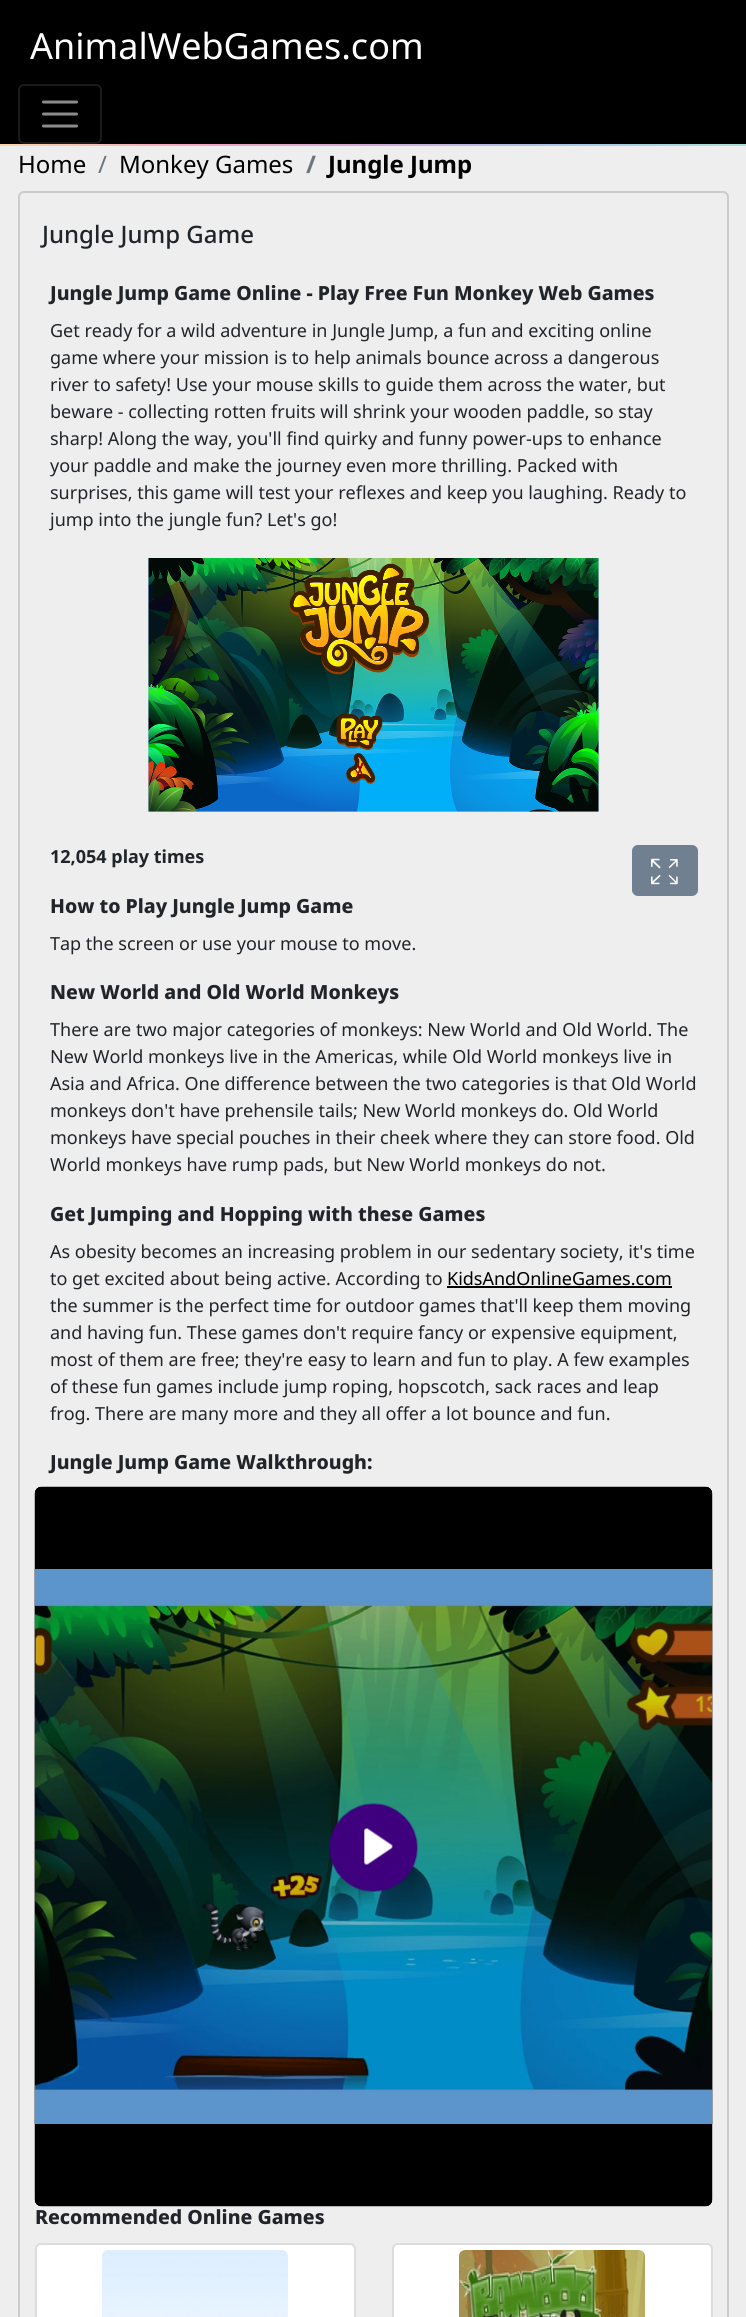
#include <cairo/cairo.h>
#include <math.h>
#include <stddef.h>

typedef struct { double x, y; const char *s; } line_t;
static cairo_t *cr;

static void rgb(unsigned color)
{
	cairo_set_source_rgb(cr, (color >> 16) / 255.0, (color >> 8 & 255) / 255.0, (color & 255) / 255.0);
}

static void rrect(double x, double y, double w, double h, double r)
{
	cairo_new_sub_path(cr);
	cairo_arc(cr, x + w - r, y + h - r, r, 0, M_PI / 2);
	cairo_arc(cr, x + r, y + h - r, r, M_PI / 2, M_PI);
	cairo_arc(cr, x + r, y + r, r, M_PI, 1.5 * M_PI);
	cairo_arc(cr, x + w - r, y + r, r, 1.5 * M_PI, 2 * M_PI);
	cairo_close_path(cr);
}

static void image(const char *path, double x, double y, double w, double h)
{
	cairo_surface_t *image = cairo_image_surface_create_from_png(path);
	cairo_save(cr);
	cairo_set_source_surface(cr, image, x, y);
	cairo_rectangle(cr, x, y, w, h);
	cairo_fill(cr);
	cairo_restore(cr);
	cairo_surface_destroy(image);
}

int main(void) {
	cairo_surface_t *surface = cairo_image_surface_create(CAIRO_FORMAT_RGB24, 746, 2317);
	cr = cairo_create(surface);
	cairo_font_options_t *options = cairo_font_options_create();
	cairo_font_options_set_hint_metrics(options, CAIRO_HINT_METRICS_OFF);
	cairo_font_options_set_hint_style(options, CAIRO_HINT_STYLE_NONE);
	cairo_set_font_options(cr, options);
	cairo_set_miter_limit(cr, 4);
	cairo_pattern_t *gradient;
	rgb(0xffffff);
	cairo_paint(cr);
	gradient = cairo_pattern_create_linear(0, 1950, 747, 1950);
	cairo_pattern_add_color_stop_rgba(gradient, 0, 0.98, 0.839, 0.647, 1);
	cairo_pattern_add_color_stop_rgba(gradient, 0.25, 0.957, 0.651, 0.757, 1);
	cairo_pattern_add_color_stop_rgba(gradient, 0.5, 0.82, 0.655, 0.847, 1);
	cairo_pattern_add_color_stop_rgba(gradient, 0.75, 0.655, 0.776, 0.906, 1);
	cairo_pattern_add_color_stop_rgba(gradient, 1, 0.655, 0.882, 0.847, 1);
	cairo_set_source(cr, gradient);
	cairo_pattern_destroy(gradient);
	cairo_rectangle(cr, 0, 144, 746, 2);
	cairo_fill(cr);
	rgb(0x000000);
	cairo_rectangle(cr, 0, 0, 746, 144);
	cairo_fill(cr);
	rrect(19, 85, 82, 58, 5);
	rgb(0x1a1a1a);
	cairo_stroke(cr);
	cairo_new_path(cr);
	cairo_move_to(cr, 43.5, 102);
	cairo_line_to(cr, 76.5, 102);
	cairo_move_to(cr, 43.5, 114);
	cairo_line_to(cr, 76.5, 114);
	cairo_move_to(cr, 43.5, 126);
	cairo_line_to(cr, 76.5, 126);
	rgb(0x8c8c8c);
	cairo_set_line_width(cr, 3);
	cairo_set_line_cap(cr, CAIRO_LINE_CAP_ROUND);
	cairo_stroke(cr);
	rgb(0xeeeeee);
	cairo_rectangle(cr, 0, 146, 746, 2171);
	cairo_fill(cr);
	rrect(19, 192, 709, 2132, 5);
	rgb(0xcccccc);
	cairo_set_line_width(cr, 2);
	cairo_set_line_cap(cr, CAIRO_LINE_CAP_BUTT);
	cairo_stroke(cr);
	image("img/1.png", 148, 558, 451, 254);
	rgb(0x708090);
	rrect(632, 845, 66, 51, 6);
	cairo_fill(cr);
	image("img/2.png", 651, 858, 27, 27);
	rgb(0x000000);
	cairo_rectangle(cr, 447, 1286, 225, 2);
	cairo_fill(cr);
	image("img/3.png", 34, 1486, 679, 721);
	rgb(0xffffff);
	rrect(36, 2244, 319, 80, 5);
	cairo_fill_preserve(cr);
	rgb(0xdddddd);
	cairo_stroke(cr);
	image("img/4.png", 102, 2250, 186, 67);
	rgb(0xffffff);
	rrect(393, 2244, 319, 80, 5);
	cairo_fill_preserve(cr);
	rgb(0xdddddd);
	cairo_stroke(cr);
	image("img/5.png", 459, 2250, 186, 67);
	cairo_select_font_face(cr, "Noto Sans", CAIRO_FONT_SLANT_NORMAL, CAIRO_FONT_WEIGHT_NORMAL);
	cairo_set_font_size(cr, 36);
	rgb(0xffffff);
	cairo_move_to(cr, 30, 59);
	cairo_show_text(cr, "AnimalWebGames.com");
	cairo_set_font_size(cr, 24);
	rgb(0x000000);
	cairo_move_to(cr, 18, 173);
	cairo_show_text(cr, "Home");
	rgb(0x6c757d);
	cairo_move_to(cr, 98, 173);
	cairo_show_text(cr, "/");
	rgb(0x000000);
	cairo_move_to(cr, 119, 173);
	cairo_show_text(cr, "Monkey Games");
	cairo_select_font_face(cr, "Noto Sans", CAIRO_FONT_SLANT_NORMAL, CAIRO_FONT_WEIGHT_BOLD);
	rgb(0x6c757d);
	cairo_move_to(cr, 306, 173);
	cairo_show_text(cr, "/");
	rgb(0x000000);
	cairo_move_to(cr, 328, 173);
	cairo_show_text(cr, "Jungle Jump");
	cairo_select_font_face(cr, "Noto Sans Medium", CAIRO_FONT_SLANT_NORMAL, CAIRO_FONT_WEIGHT_NORMAL);
	rgb(0x212529);
	cairo_move_to(cr, 42, 243);
	cairo_show_text(cr, "Jungle Jump Game");
	cairo_select_font_face(cr, "Noto Sans ExtraBold", CAIRO_FONT_SLANT_NORMAL, CAIRO_FONT_WEIGHT_NORMAL);
	cairo_set_font_size(cr, 19.5);
	cairo_move_to(cr, 50, 300);
	cairo_show_text(cr, "Jungle Jump Game Online - Play Free Fun Monkey Web Games");
	cairo_select_font_face(cr, "Noto Sans", CAIRO_FONT_SLANT_NORMAL, CAIRO_FONT_WEIGHT_NORMAL);
	cairo_set_font_size(cr, 18);
	{
		static const line_t items[] = {
			{50, 337, "Get ready for a wild adventure in Jungle Jump, a fun and exciting online"},
			{50, 364, "game where your mission is to help animals bounce across a dangerous"},
			{50, 391, "river to safety! Use your mouse skills to guide them across the water, but"},
			{50, 418, "beware - collecting rotten fruits will shrink your wooden paddle, so stay"},
			{50, 445, "sharp! Along the way, you'll find quirky and funny power-ups to enhance"},
			{50, 472, "your paddle and make the journey even more thrilling. Packed with"},
			{50, 499, "surprises, this game will test your reflexes and keep you laughing. Ready to"},
			{50, 526, "jump into the jungle fun? Let's go!"},
		};
		for (size_t i = 0; i < sizeof items / sizeof *items; i++) {
			cairo_move_to(cr, items[i].x, items[i].y);
			cairo_show_text(cr, items[i].s);
		}
	}
	cairo_select_font_face(cr, "Noto Sans", CAIRO_FONT_SLANT_NORMAL, CAIRO_FONT_WEIGHT_BOLD);
	cairo_move_to(cr, 50, 863);
	cairo_show_text(cr, "12,054 play times");
	cairo_select_font_face(cr, "Noto Sans ExtraBold", CAIRO_FONT_SLANT_NORMAL, CAIRO_FONT_WEIGHT_NORMAL);
	cairo_set_font_size(cr, 19.5);
	cairo_move_to(cr, 50, 913);
	cairo_show_text(cr, "How to Play Jungle Jump Game");
	cairo_select_font_face(cr, "Noto Sans", CAIRO_FONT_SLANT_NORMAL, CAIRO_FONT_WEIGHT_NORMAL);
	cairo_set_font_size(cr, 18);
	cairo_move_to(cr, 50, 950);
	cairo_show_text(cr, "Tap the screen or use your mouse to move.");
	cairo_select_font_face(cr, "Noto Sans ExtraBold", CAIRO_FONT_SLANT_NORMAL, CAIRO_FONT_WEIGHT_NORMAL);
	cairo_set_font_size(cr, 19.5);
	cairo_move_to(cr, 50, 999);
	cairo_show_text(cr, "New World and Old World Monkeys");
	cairo_select_font_face(cr, "Noto Sans", CAIRO_FONT_SLANT_NORMAL, CAIRO_FONT_WEIGHT_NORMAL);
	cairo_set_font_size(cr, 18);
	{
		static const line_t items[] = {
			{50, 1036, "There are two major categories of monkeys: New World and Old World. The"},
			{50, 1063, "New World monkeys live in the Americas, while Old World monkeys live in"},
			{50, 1090, "Asia and Africa. One difference between the two categories is that Old World"},
			{50, 1117, "monkeys don't have prehensile tails; New World monkeys do. Old World"},
			{50, 1144, "monkeys have special pouches in their cheek where they can store food. Old"},
			{50, 1171, "World monkeys have rump pads, but New World monkeys do not."},
		};
		for (size_t i = 0; i < sizeof items / sizeof *items; i++) {
			cairo_move_to(cr, items[i].x, items[i].y);
			cairo_show_text(cr, items[i].s);
		}
	}
	cairo_select_font_face(cr, "Noto Sans ExtraBold", CAIRO_FONT_SLANT_NORMAL, CAIRO_FONT_WEIGHT_NORMAL);
	cairo_set_font_size(cr, 19.5);
	cairo_move_to(cr, 50, 1221);
	cairo_show_text(cr, "Get Jumping and Hopping with these Games");
	cairo_select_font_face(cr, "Noto Sans", CAIRO_FONT_SLANT_NORMAL, CAIRO_FONT_WEIGHT_NORMAL);
	cairo_set_font_size(cr, 18);
	cairo_move_to(cr, 50, 1258);
	cairo_show_text(cr, "As obesity becomes an increasing problem in our sedentary society, it's time");
	cairo_move_to(cr, 50, 1285);
	cairo_show_text(cr, "to get excited about being active. According to");
	rgb(0x000000);
	cairo_move_to(cr, 447, 1285);
	cairo_show_text(cr, "KidsAndOnlineGames.com");
	rgb(0x212529);
	{
		static const line_t items[] = {
			{50, 1312, "the summer is the perfect time for outdoor games that'll keep them moving"},
			{50, 1339, "and having fun. These games don't require fancy or expensive equipment,"},
			{50, 1366, "most of them are free; they're easy to learn and fun to play. A few examples"},
			{50, 1393, "of these fun games include jump roping, hopscotch, sack races and leap"},
			{50, 1420, "frog. There are many more and they all offer a lot bounce and fun."},
		};
		for (size_t i = 0; i < sizeof items / sizeof *items; i++) {
			cairo_move_to(cr, items[i].x, items[i].y);
			cairo_show_text(cr, items[i].s);
		}
	}
	cairo_select_font_face(cr, "Noto Sans ExtraBold", CAIRO_FONT_SLANT_NORMAL, CAIRO_FONT_WEIGHT_NORMAL);
	cairo_set_font_size(cr, 19.5);
	cairo_move_to(cr, 50, 1469);
	cairo_show_text(cr, "Jungle Jump Game Walkthrough:");
	cairo_move_to(cr, 35, 2224);
	cairo_show_text(cr, "Recommended Online Games");
	cairo_surface_write_to_png(surface, "page.png");
	cairo_font_options_destroy(options);
	cairo_destroy(cr);
	cairo_surface_destroy(surface);
	return 0;
}
